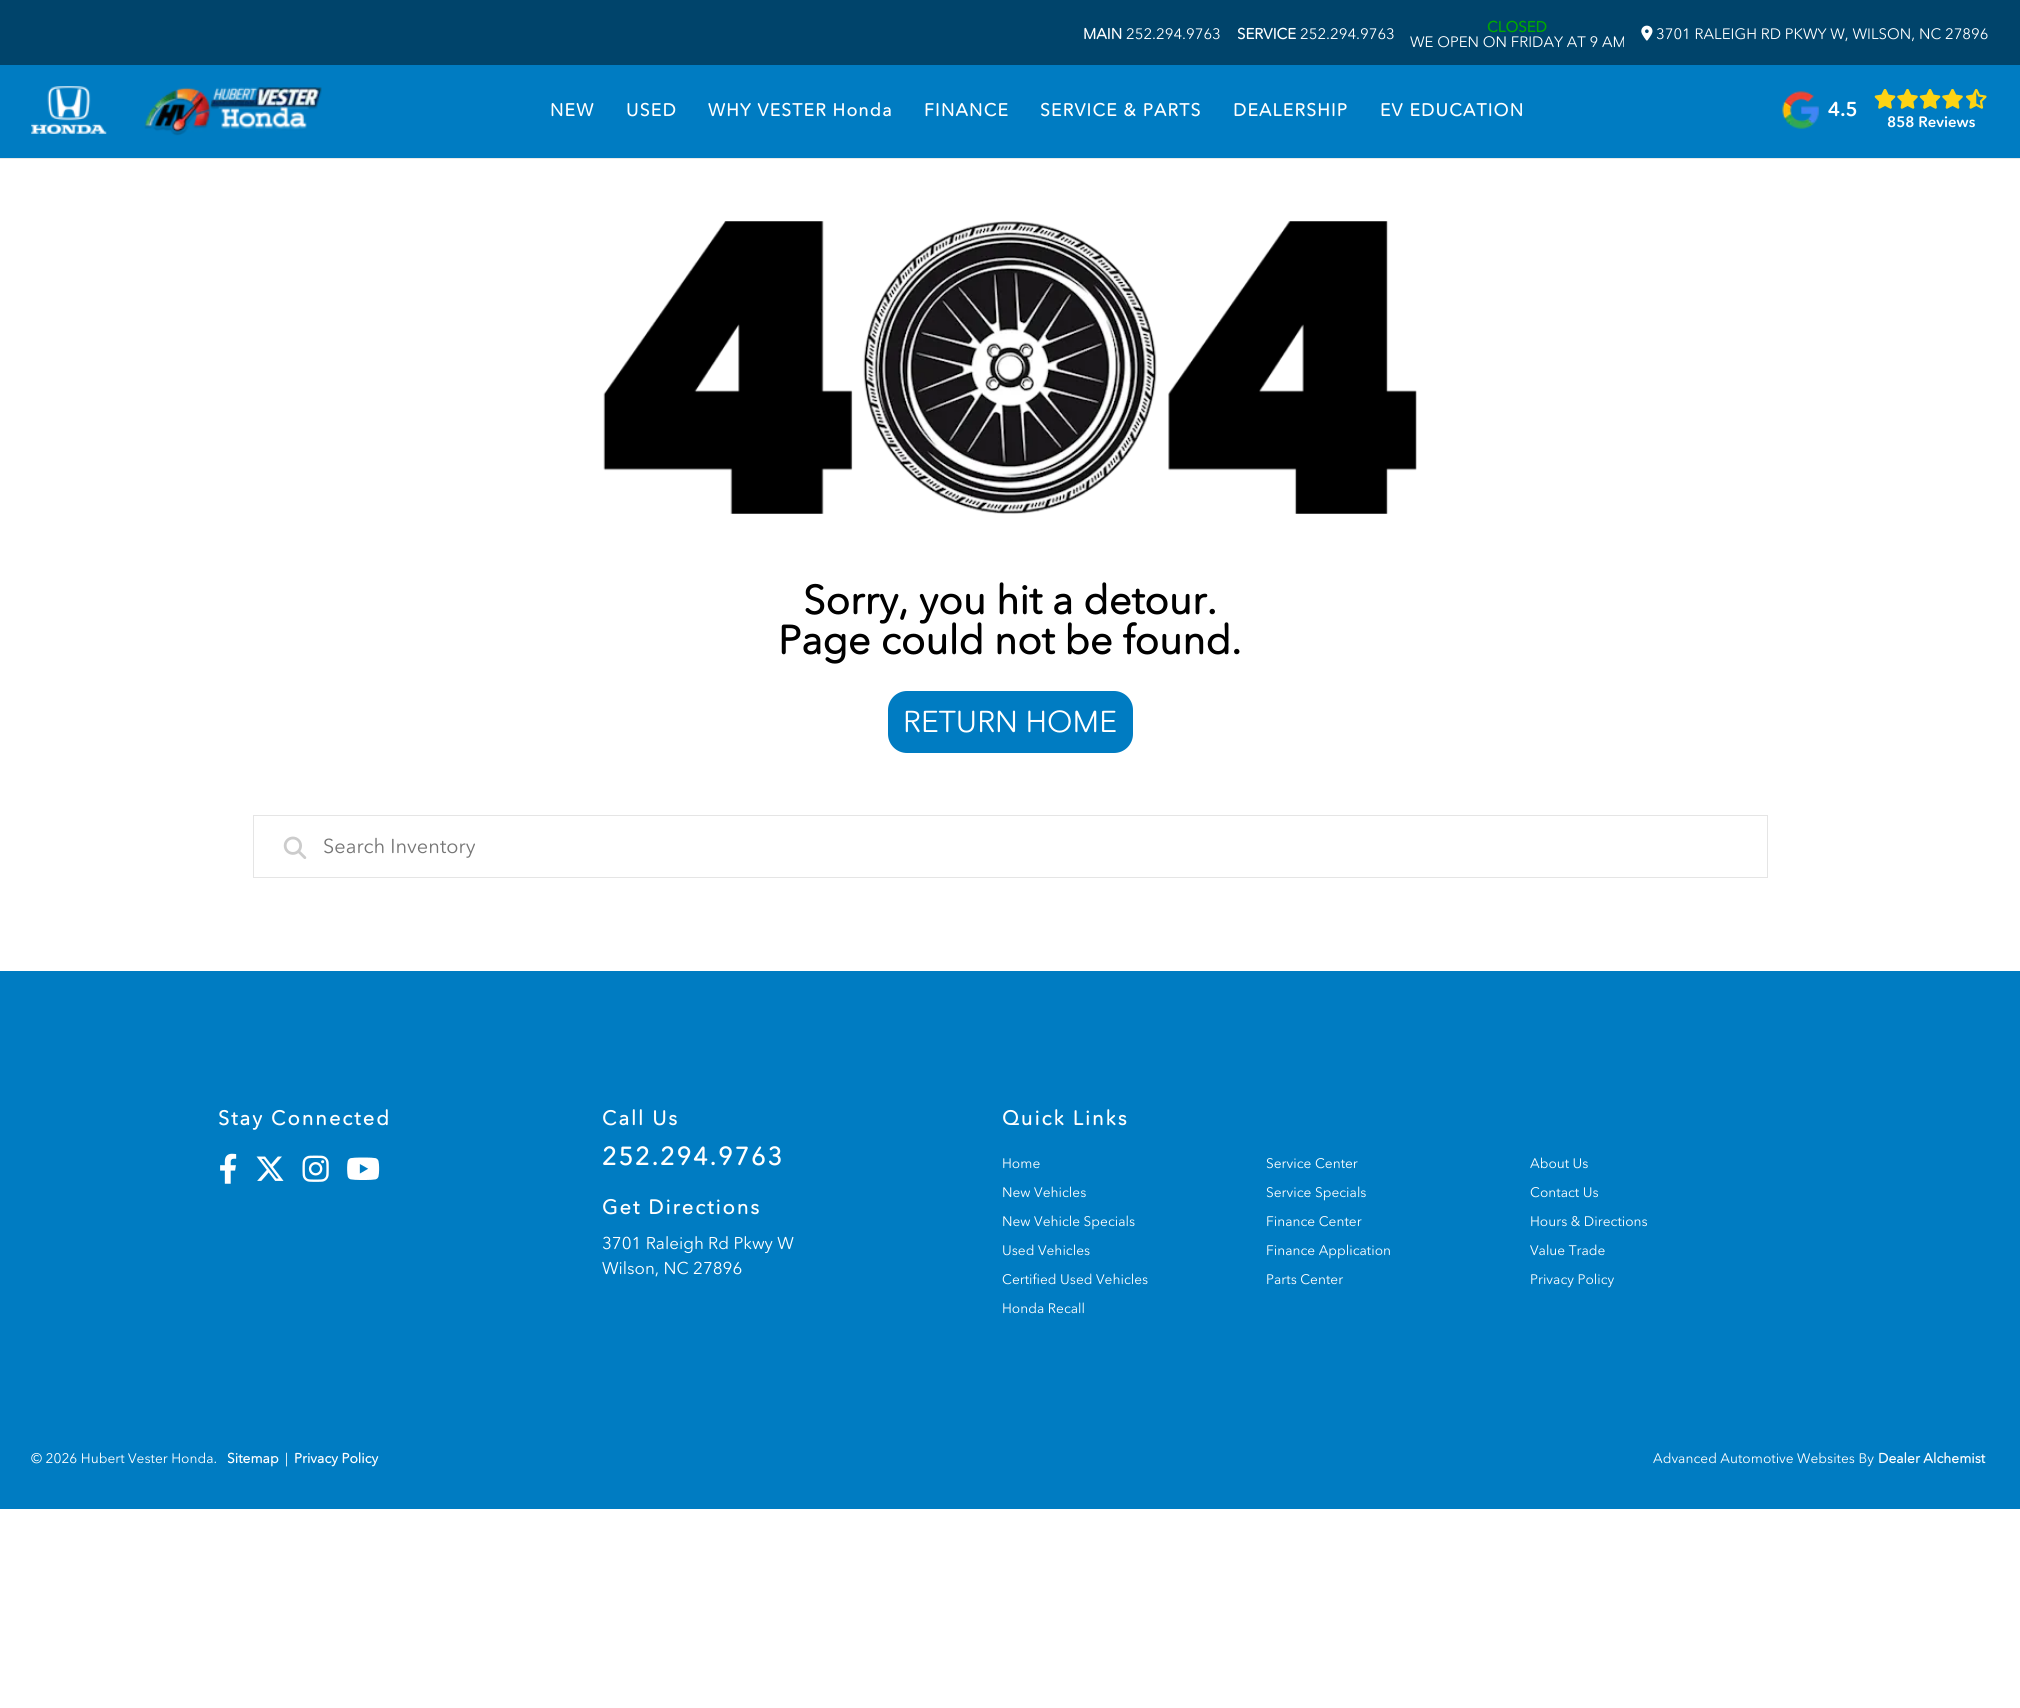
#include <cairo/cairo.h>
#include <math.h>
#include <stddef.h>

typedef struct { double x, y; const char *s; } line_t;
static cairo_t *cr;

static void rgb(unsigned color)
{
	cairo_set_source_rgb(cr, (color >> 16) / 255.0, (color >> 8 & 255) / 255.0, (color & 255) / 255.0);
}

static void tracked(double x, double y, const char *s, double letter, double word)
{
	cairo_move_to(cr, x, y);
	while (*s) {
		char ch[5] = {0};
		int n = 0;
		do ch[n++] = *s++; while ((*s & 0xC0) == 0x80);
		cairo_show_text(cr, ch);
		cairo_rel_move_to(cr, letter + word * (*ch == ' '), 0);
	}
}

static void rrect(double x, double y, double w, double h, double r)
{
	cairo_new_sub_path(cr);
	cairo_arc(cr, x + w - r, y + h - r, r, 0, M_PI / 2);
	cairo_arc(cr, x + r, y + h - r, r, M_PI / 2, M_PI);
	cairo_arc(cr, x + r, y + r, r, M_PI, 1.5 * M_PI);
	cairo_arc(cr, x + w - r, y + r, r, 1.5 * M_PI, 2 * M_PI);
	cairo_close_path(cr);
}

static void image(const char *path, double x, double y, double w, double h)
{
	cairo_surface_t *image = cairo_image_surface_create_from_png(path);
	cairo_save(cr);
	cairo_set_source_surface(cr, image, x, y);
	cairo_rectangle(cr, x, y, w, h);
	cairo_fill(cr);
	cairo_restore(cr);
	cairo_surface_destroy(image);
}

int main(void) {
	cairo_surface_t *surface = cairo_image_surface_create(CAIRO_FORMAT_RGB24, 2020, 1708);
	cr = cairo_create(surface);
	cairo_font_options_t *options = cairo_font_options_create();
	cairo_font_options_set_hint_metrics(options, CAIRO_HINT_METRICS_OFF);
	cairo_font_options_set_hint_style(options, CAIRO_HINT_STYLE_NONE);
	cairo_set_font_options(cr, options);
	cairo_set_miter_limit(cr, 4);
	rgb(0xffffff);
	cairo_paint(cr);
	rgb(0x00446b);
	cairo_rectangle(cr, 0, 0, 2020, 65);
	cairo_fill(cr);
	image("img/1.png", 1641, 25, 12, 16);
	rgb(0x007cc2);
	cairo_rectangle(cr, 0, 65, 2020, 93);
	cairo_fill(cr);
	rgb(0xe9e9e9);
	cairo_rectangle(cr, 0, 158, 2020, 1);
	cairo_fill(cr);
	image("img/2.png", 31, 86, 76, 48);
	image("img/3.png", 144, 87, 178, 49);
	image("img/4.png", 1782, 91, 37, 38);
	image("img/5.png", 1874, 89, 22, 20);
	image("img/6.png", 1897, 89, 21, 20);
	image("img/5.png", 1919, 89, 22, 20);
	image("img/6.png", 1942, 89, 21, 20);
	image("img/7.png", 1966, 89, 21, 20);
	image("img/8.png", 603, 221, 814, 293);
	rgb(0x007cc2);
	rrect(888, 691, 245, 62, 19);
	cairo_fill(cr);
	cairo_rectangle(cr, 253.5, 815.5, 1514, 62);
	rgb(0xe5e5e5);
	cairo_set_line_width(cr, 1);
	cairo_stroke(cr);
	image("img/9.png", 283, 836, 24, 23);
	rgb(0x007cc2);
	cairo_rectangle(cr, 0, 971, 2020, 538);
	cairo_fill(cr);
	image("img/10.png", 220, 1153, 17, 31);
	image("img/11.png", 256, 1156, 28, 25);
	image("img/12.png", 302, 1155, 27, 27);
	image("img/13.png", 347, 1157, 33, 23);
	cairo_select_font_face(cr, "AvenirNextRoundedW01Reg", CAIRO_FONT_SLANT_NORMAL, CAIRO_FONT_WEIGHT_BOLD);
	cairo_set_font_size(cr, 15);
	rgb(0xffffff);
	cairo_move_to(cr, 1083, 39);
	cairo_show_text(cr, "MAIN");
	cairo_select_font_face(cr, "AvenirNextRoundedW01Reg", CAIRO_FONT_SLANT_NORMAL, CAIRO_FONT_WEIGHT_NORMAL);
	cairo_move_to(cr, 1126, 39);
	cairo_show_text(cr, "252.294.9763");
	cairo_select_font_face(cr, "AvenirNextRoundedW01Reg", CAIRO_FONT_SLANT_NORMAL, CAIRO_FONT_WEIGHT_BOLD);
	cairo_move_to(cr, 1237, 39);
	cairo_show_text(cr, "SERVICE");
	cairo_select_font_face(cr, "AvenirNextRoundedW01Reg", CAIRO_FONT_SLANT_NORMAL, CAIRO_FONT_WEIGHT_NORMAL);
	cairo_move_to(cr, 1300, 39);
	cairo_show_text(cr, "252.294.9763");
	cairo_select_font_face(cr, "AvenirNextRoundedW01Reg", CAIRO_FONT_SLANT_NORMAL, CAIRO_FONT_WEIGHT_BOLD);
	rgb(0x00a900);
	cairo_move_to(cr, 1487, 32);
	cairo_show_text(cr, "CLOSED");
	cairo_select_font_face(cr, "AvenirNextRoundedW01Reg", CAIRO_FONT_SLANT_NORMAL, CAIRO_FONT_WEIGHT_NORMAL);
	rgb(0xffffff);
	cairo_move_to(cr, 1410, 47);
	cairo_show_text(cr, "WE OPEN ON FRIDAY AT 9 AM");
	cairo_move_to(cr, 1656, 39);
	cairo_show_text(cr, "3701 RALEIGH RD PKWY W, WILSON, NC 27896");
	cairo_select_font_face(cr, "AvenirNextRoundedW01Reg", CAIRO_FONT_SLANT_NORMAL, CAIRO_FONT_WEIGHT_BOLD);
	cairo_set_font_size(cr, 17.5);
	{
		static const line_t items[] = {
			{550, 116, "NEW"},
			{626, 116, "USED"},
			{708, 116, "WHY VESTER Honda"},
			{924, 116, "FINANCE"},
			{1040, 116, "SERVICE & PARTS"},
			{1233, 116, "DEALERSHIP"},
			{1380, 116, "EV EDUCATION"},
		};
		for (size_t i = 0; i < sizeof items / sizeof *items; i++) {
			tracked(items[i].x, items[i].y, items[i].s, 1.25, 0);
		}
	}
	cairo_select_font_face(cr, "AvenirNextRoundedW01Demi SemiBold", CAIRO_FONT_SLANT_NORMAL, CAIRO_FONT_WEIGHT_NORMAL);
	cairo_set_font_size(cr, 20);
	cairo_move_to(cr, 1828, 116);
	cairo_show_text(cr, "4.5");
	cairo_set_font_size(cr, 15);
	cairo_move_to(cr, 1887, 127);
	cairo_show_text(cr, "858 Reviews");
	cairo_select_font_face(cr, "AvenirNextRoundedW01Reg", CAIRO_FONT_SLANT_NORMAL, CAIRO_FONT_WEIGHT_BOLD);
	cairo_set_font_size(cr, 40);
	rgb(0x000000);
	cairo_move_to(cr, 803, 614);
	cairo_show_text(cr, "Sorry, you hit a detour.");
	cairo_move_to(cr, 778, 654);
	cairo_show_text(cr, "Page could not be found.");
	cairo_select_font_face(cr, "AvenirNextRoundedW01Reg", CAIRO_FONT_SLANT_NORMAL, CAIRO_FONT_WEIGHT_NORMAL);
	cairo_set_font_size(cr, 30);
	rgb(0xffffff);
	cairo_move_to(cr, 903, 732);
	cairo_show_text(cr, "RETURN HOME");
	cairo_set_font_size(cr, 20);
	rgb(0x757575);
	cairo_move_to(cr, 323, 853);
	cairo_show_text(cr, "Search Inventory");
	cairo_select_font_face(cr, "AvenirNextRoundedW01Reg", CAIRO_FONT_SLANT_NORMAL, CAIRO_FONT_WEIGHT_BOLD);
	rgb(0xffffff);
	tracked(218, 1125, "Stay Connected", 2, 0);
	tracked(602, 1125, "Call Us", 2, 0);
	cairo_set_font_size(cr, 25);
	tracked(602, 1165, "252.294.9763", 2, 0);
	cairo_set_font_size(cr, 20);
	tracked(602, 1214, "Get Directions", 2, 0);
	cairo_select_font_face(cr, "AvenirNextRoundedW01Reg", CAIRO_FONT_SLANT_NORMAL, CAIRO_FONT_WEIGHT_NORMAL);
	cairo_set_font_size(cr, 17);
	cairo_move_to(cr, 602, 1249);
	cairo_show_text(cr, "3701 Raleigh Rd Pkwy W");
	cairo_move_to(cr, 602, 1274);
	cairo_show_text(cr, "Wilson, NC 27896");
	cairo_select_font_face(cr, "AvenirNextRoundedW01Reg", CAIRO_FONT_SLANT_NORMAL, CAIRO_FONT_WEIGHT_BOLD);
	cairo_set_font_size(cr, 20);
	tracked(1002, 1125, "Quick Links", 2, 0);
	cairo_select_font_face(cr, "AvenirNextRoundedW01Reg", CAIRO_FONT_SLANT_NORMAL, CAIRO_FONT_WEIGHT_NORMAL);
	cairo_set_font_size(cr, 13.75);
	{
		static const line_t items[] = {
			{1002, 1168, "Home"},
			{1266, 1168, "Service Center"},
			{1530, 1168, "About Us"},
			{1002, 1197, "New Vehicles"},
			{1266, 1197, "Service Specials"},
			{1530, 1197, "Contact Us"},
			{1002, 1226, "New Vehicle Specials"},
			{1266, 1226, "Finance Center"},
			{1530, 1226, "Hours & Directions"},
			{1002, 1255, "Used Vehicles"},
			{1266, 1255, "Finance Application"},
			{1530, 1255, "Value Trade"},
			{1002, 1284, "Certified Used Vehicles"},
			{1266, 1284, "Parts Center"},
			{1530, 1284, "Privacy Policy"},
			{1002, 1313, "Honda Recall"},
			{31, 1463, "© 2026 Hubert Vester Honda."},
		};
		for (size_t i = 0; i < sizeof items / sizeof *items; i++) {
			cairo_move_to(cr, items[i].x, items[i].y);
			cairo_show_text(cr, items[i].s);
		}
	}
	cairo_select_font_face(cr, "AvenirNextRoundedW01Reg", CAIRO_FONT_SLANT_NORMAL, CAIRO_FONT_WEIGHT_BOLD);
	cairo_move_to(cr, 227, 1463);
	cairo_show_text(cr, "Sitemap");
	cairo_select_font_face(cr, "AvenirNextRoundedW01Reg", CAIRO_FONT_SLANT_NORMAL, CAIRO_FONT_WEIGHT_NORMAL);
	cairo_move_to(cr, 285, 1463);
	cairo_show_text(cr, "|");
	cairo_select_font_face(cr, "AvenirNextRoundedW01Reg", CAIRO_FONT_SLANT_NORMAL, CAIRO_FONT_WEIGHT_BOLD);
	cairo_move_to(cr, 294, 1463);
	cairo_show_text(cr, "Privacy Policy");
	cairo_select_font_face(cr, "AvenirNextRoundedW01Reg", CAIRO_FONT_SLANT_NORMAL, CAIRO_FONT_WEIGHT_NORMAL);
	cairo_move_to(cr, 1653, 1463);
	cairo_show_text(cr, "Advanced Automotive Websites By");
	cairo_select_font_face(cr, "AvenirNextRoundedW01Reg", CAIRO_FONT_SLANT_NORMAL, CAIRO_FONT_WEIGHT_BOLD);
	cairo_move_to(cr, 1878, 1463);
	cairo_show_text(cr, "Dealer Alchemist");
	cairo_surface_write_to_png(surface, "page.png");
	cairo_font_options_destroy(options);
	cairo_destroy(cr);
	cairo_surface_destroy(surface);
	return 0;
}
